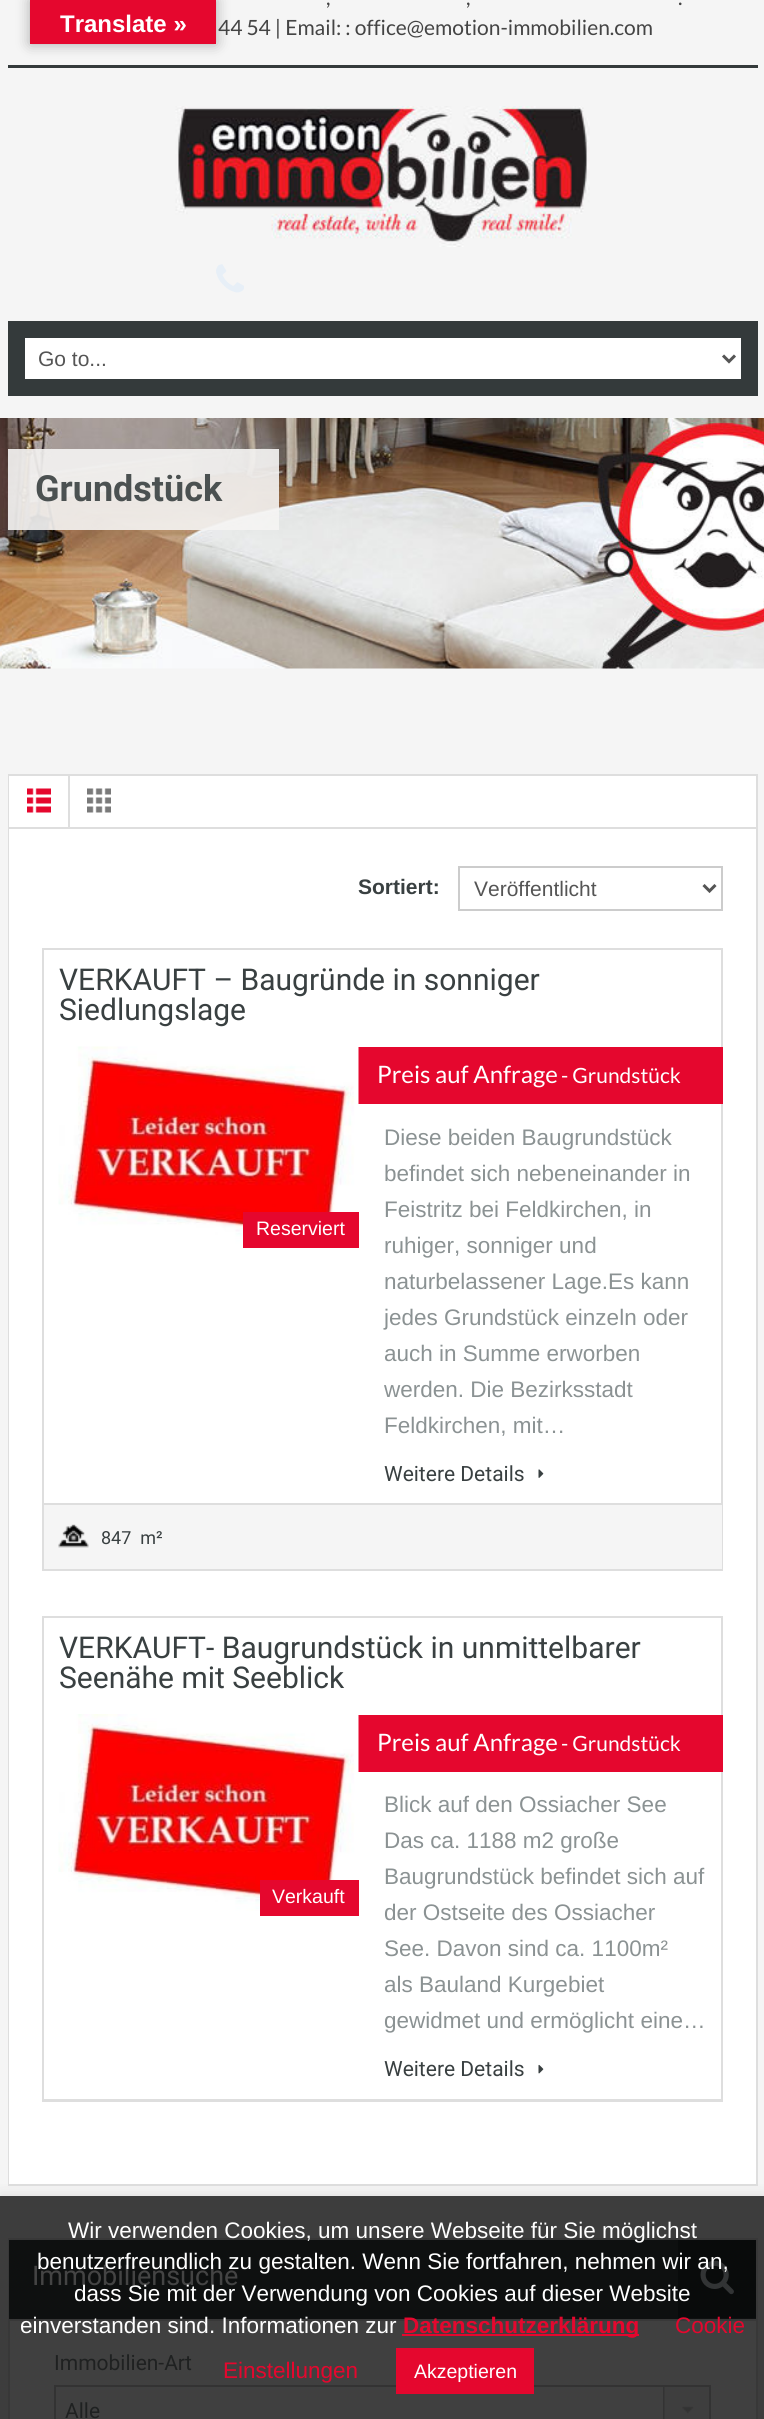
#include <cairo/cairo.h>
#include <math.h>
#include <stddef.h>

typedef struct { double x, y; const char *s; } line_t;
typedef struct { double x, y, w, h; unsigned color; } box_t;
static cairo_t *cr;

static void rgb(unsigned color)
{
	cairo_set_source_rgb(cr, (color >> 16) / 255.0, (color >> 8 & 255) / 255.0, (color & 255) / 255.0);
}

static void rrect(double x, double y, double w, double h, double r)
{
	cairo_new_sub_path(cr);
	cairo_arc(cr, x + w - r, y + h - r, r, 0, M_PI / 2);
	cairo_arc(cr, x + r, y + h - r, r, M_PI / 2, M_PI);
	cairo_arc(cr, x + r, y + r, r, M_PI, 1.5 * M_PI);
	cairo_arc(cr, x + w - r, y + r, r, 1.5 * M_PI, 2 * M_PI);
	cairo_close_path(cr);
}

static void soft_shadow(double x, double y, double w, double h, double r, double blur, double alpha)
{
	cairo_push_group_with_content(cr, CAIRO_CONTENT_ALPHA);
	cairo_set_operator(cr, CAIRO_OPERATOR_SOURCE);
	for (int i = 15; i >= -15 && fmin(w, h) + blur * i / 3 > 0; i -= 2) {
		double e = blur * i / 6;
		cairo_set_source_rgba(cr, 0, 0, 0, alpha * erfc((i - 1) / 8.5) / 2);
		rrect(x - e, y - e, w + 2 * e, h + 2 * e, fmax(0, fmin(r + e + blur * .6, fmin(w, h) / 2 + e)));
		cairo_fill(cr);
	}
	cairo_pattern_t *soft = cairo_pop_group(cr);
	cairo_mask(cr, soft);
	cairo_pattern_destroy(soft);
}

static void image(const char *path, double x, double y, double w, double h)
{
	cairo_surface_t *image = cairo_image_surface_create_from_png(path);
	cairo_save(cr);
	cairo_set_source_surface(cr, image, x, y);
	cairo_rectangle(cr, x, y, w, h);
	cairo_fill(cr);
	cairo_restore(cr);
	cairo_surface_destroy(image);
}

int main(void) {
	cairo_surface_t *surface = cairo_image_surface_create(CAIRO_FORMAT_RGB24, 764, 2419);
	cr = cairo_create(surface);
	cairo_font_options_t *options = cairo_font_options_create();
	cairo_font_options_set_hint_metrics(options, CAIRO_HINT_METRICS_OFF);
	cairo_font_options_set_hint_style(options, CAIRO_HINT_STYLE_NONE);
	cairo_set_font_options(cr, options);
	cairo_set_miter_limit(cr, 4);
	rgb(0xf5f5f5);
	cairo_paint(cr);
	rgb(0x3d3d3d);
	cairo_rectangle(cr, 0, 2196, 764, 223);
	cairo_fill(cr);
	rgb(0x343a3b);
	cairo_rectangle(cr, 8, 65, 750, 3);
	cairo_fill(cr);
	image("img/1.png", 175, 106, 415, 141);
	image("img/2.png", 216, 264, 28, 29);
	cairo_rectangle(cr, 8, 321, 750, 75);
	cairo_fill(cr);
	rgb(0xffffff);
	cairo_rectangle(cr, 25, 338, 716, 41);
	cairo_fill(cr);
	cairo_new_path(cr);
	cairo_move_to(cr, 723, 355.5);
	cairo_line_to(cr, 729, 361.5);
	cairo_line_to(cr, 735, 355.5);
	rgb(0x555555);
	cairo_set_line_width(cr, 3);
	cairo_stroke(cr);
	rgb(0x000000);
	soft_shadow(30, 0, 186, 44, 0, 7, 0.3);
	rgb(0xe5072e);
	cairo_rectangle(cr, 30, 0, 186, 44);
	cairo_fill(cr);
	image("img/3.png", 0, 418, 764, 251);
	cairo_set_source_rgba(cr, 0.961, 0.957, 0.953, 0.9);
	cairo_rectangle(cr, 8, 449, 271, 81);
	cairo_fill(cr);
	rgb(0xdedede);
	cairo_rectangle(cr, 756, 774, 2, 1412);
	cairo_fill(cr);
	cairo_rectangle(cr, 8, 774, 1, 1412);
	cairo_fill(cr);
	rgb(0xffffff);
	cairo_rectangle(cr, 9, 776, 747, 1408);
	cairo_fill(cr);
	rgb(0xdedede);
	cairo_rectangle(cr, 9, 774, 747, 2);
	cairo_fill(cr);
	cairo_rectangle(cr, 9, 2184, 747, 2);
	cairo_fill(cr);
	cairo_rectangle(cr, 9, 827, 747, 2);
	cairo_fill(cr);
	image("img/4.png", 27, 788, 24, 25);
	cairo_rectangle(cr, 68, 776, 2, 51);
	cairo_fill(cr);
	image("img/5.png", 87, 788, 24, 25);
	cairo_rectangle(cr, 459, 867, 263, 43);
	rgb(0xcccccc);
	cairo_set_line_width(cr, 2);
	cairo_stroke(cr);
	cairo_new_path(cr);
	cairo_move_to(cr, 703.5, 885);
	cairo_line_to(cr, 709.5, 891);
	cairo_line_to(cr, 715.5, 885);
	rgb(0x555555);
	cairo_set_line_width(cr, 3);
	cairo_stroke(cr);
	cairo_rectangle(cr, 43, 949, 679, 621);
	rgb(0xdedede);
	cairo_set_line_width(cr, 2);
	cairo_stroke(cr);
	rgb(0xe5072e);
	cairo_rectangle(cr, 358, 1047, 365, 57);
	cairo_fill(cr);
	image("img/6.png", 58, 1046, 301, 198);
	cairo_rectangle(cr, 243, 1212, 116, 36);
	cairo_fill(cr);
	image("img/7.png", 538, 1469, 6, 9);
	rgb(0xf5f5f5);
	cairo_rectangle(cr, 44, 1505, 678, 64);
	cairo_fill(cr);
	rgb(0xdedede);
	cairo_rectangle(cr, 44, 1503, 678, 2);
	cairo_fill(cr);
	image("img/8.png", 58, 1524, 31, 24);
	cairo_rectangle(cr, 43, 1617, 679, 484);
	cairo_stroke(cr);
	rgb(0xe5072e);
	cairo_rectangle(cr, 358, 1715, 365, 57);
	cairo_fill(cr);
	image("img/9.png", 58, 1714, 301, 197);
	cairo_rectangle(cr, 260, 1880, 99, 36);
	cairo_fill(cr);
	image("img/10.png", 538, 2064, 6, 10);
	rgb(0xdedede);
	cairo_rectangle(cr, 44, 2099, 678, 1);
	cairo_fill(cr);
	rgb(0x404040);
	cairo_rectangle(cr, 10, 2321, 746, 98);
	cairo_fill(cr);
	cairo_rectangle(cr, 9, 2239, 748, 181);
	rgb(0x383838);
	cairo_stroke(cr);
	{
		static const box_t items[] = {
			{9, 2240, 747, 79, 0x0e1010},
			{9, 2319, 747, 2, 0x383838},
			{678, 2240, 78, 78, 0x090b0b},
		};
		for (size_t i = 0; i < sizeof items / sizeof *items; i++) {
			rgb(items[i].color);
			cairo_rectangle(cr, items[i].x, items[i].y, items[i].w, items[i].h);
			cairo_fill(cr);
		}
	}
	image("img/11.png", 700, 2260, 34, 35);
	image("img/12.png", 663, 2387, 46, 32);
	cairo_rectangle(cr, 55, 2386, 655, 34);
	rgb(0x333333);
	cairo_stroke(cr);
	cairo_save(cr);
	cairo_rectangle(cr, 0, 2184, 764, 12);
	cairo_clip(cr);
	rgb(0xacabab);
	soft_shadow(0, 2195, 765, 223, 0, 7.5, 0.3);
	cairo_restore(cr);
	rgb(0xe5072e);
	cairo_rectangle(cr, 402, 2334, 237, 2);
	cairo_fill(cr);
	cairo_rectangle(cr, 396, 2348, 138, 46);
	cairo_fill(cr);
	cairo_select_font_face(cr, "Lato", CAIRO_FONT_SLANT_NORMAL, CAIRO_FONT_WEIGHT_NORMAL);
	cairo_set_font_size(cr, 21);
	rgb(0x444444);
	{
		static const line_t items[] = {
			{326, 5, ","},
			{466, 5, ","},
			{678, 5, "."},
			{218, 35, "44 54 | Email: : office@emotion-immobilien.com"},
		};
		for (size_t i = 0; i < sizeof items / sizeof *items; i++) {
			cairo_move_to(cr, items[i].x, items[i].y);
			cairo_show_text(cr, items[i].s);
		}
	}
	cairo_select_font_face(cr, "Liberation Sans", CAIRO_FONT_SLANT_NORMAL, CAIRO_FONT_WEIGHT_NORMAL);
	rgb(0x555555);
	cairo_move_to(cr, 38, 366);
	cairo_show_text(cr, "Go to...");
	cairo_select_font_face(cr, "Liberation Sans", CAIRO_FONT_SLANT_NORMAL, CAIRO_FONT_WEIGHT_BOLD);
	cairo_set_font_size(cr, 24);
	rgb(0xffffff);
	cairo_move_to(cr, 60, 32);
	cairo_show_text(cr, "Translate »");
	cairo_select_font_face(cr, "Roboto", CAIRO_FONT_SLANT_NORMAL, CAIRO_FONT_WEIGHT_BOLD);
	cairo_set_font_size(cr, 36);
	rgb(0x4b5151);
	cairo_move_to(cr, 35, 501);
	cairo_show_text(cr, "Grundstück");
	cairo_select_font_face(cr, "Liberation Sans", CAIRO_FONT_SLANT_NORMAL, CAIRO_FONT_WEIGHT_BOLD);
	cairo_set_font_size(cr, 21);
	rgb(0x394041);
	cairo_move_to(cr, 358, 894);
	cairo_show_text(cr, "Sortiert:");
	cairo_select_font_face(cr, "Liberation Sans", CAIRO_FONT_SLANT_NORMAL, CAIRO_FONT_WEIGHT_NORMAL);
	rgb(0x555555);
	cairo_move_to(cr, 474, 896);
	cairo_show_text(cr, "Veröffentlicht");
	cairo_select_font_face(cr, "Roboto", CAIRO_FONT_SLANT_NORMAL, CAIRO_FONT_WEIGHT_NORMAL);
	cairo_set_font_size(cr, 30);
	rgb(0x394041);
	cairo_move_to(cr, 59, 990);
	cairo_show_text(cr, "VERKAUFT – Baugründe in sonniger");
	cairo_move_to(cr, 59, 1020);
	cairo_show_text(cr, "Siedlungslage");
	cairo_select_font_face(cr, "Liberation Sans", CAIRO_FONT_SLANT_NORMAL, CAIRO_FONT_WEIGHT_NORMAL);
	cairo_set_font_size(cr, 19.5);
	rgb(0xffffff);
	cairo_move_to(cr, 256, 1235);
	cairo_show_text(cr, "Reserviert");
	cairo_select_font_face(cr, "Lato", CAIRO_FONT_SLANT_NORMAL, CAIRO_FONT_WEIGHT_NORMAL);
	cairo_set_font_size(cr, 24);
	cairo_move_to(cr, 377, 1083);
	cairo_show_text(cr, "Preis auf Anfrage");
	cairo_set_font_size(cr, 21);
	cairo_move_to(cr, 561, 1083);
	cairo_show_text(cr, "- Grundstück");
	cairo_select_font_face(cr, "Liberation Sans", CAIRO_FONT_SLANT_NORMAL, CAIRO_FONT_WEIGHT_NORMAL);
	cairo_set_font_size(cr, 22.5);
	rgb(0x8b9293);
	{
		static const line_t items[] = {
			{384, 1145, "Diese beiden Baugrundstück"},
			{384, 1181, "befindet sich nebeneinander in"},
			{384, 1217, "Feistritz bei Feldkirchen, in"},
			{384, 1253, "ruhiger, sonniger und"},
			{384, 1289, "naturbelassener Lage.Es kann"},
			{384, 1325, "jedes Grundstück einzeln oder"},
			{384, 1361, "auch in Summe erworben"},
			{384, 1397, "werden. Die Bezirksstadt"},
			{384, 1433, "Feldkirchen, mit…"},
		};
		for (size_t i = 0; i < sizeof items / sizeof *items; i++) {
			cairo_move_to(cr, items[i].x, items[i].y);
			cairo_show_text(cr, items[i].s);
		}
	}
	cairo_select_font_face(cr, "Roboto", CAIRO_FONT_SLANT_NORMAL, CAIRO_FONT_WEIGHT_NORMAL);
	cairo_set_font_size(cr, 21);
	rgb(0x394041);
	cairo_move_to(cr, 384, 1481);
	cairo_show_text(cr, "Weitere Details");
	cairo_set_font_size(cr, 18);
	cairo_move_to(cr, 101, 1544);
	cairo_show_text(cr, "847  m²");
	cairo_set_font_size(cr, 30);
	cairo_move_to(cr, 59, 1658);
	cairo_show_text(cr, "VERKAUFT- Baugrundstück in unmittelbarer");
	cairo_move_to(cr, 59, 1688);
	cairo_show_text(cr, "Seenähe mit Seeblick");
	cairo_select_font_face(cr, "Liberation Sans", CAIRO_FONT_SLANT_NORMAL, CAIRO_FONT_WEIGHT_NORMAL);
	cairo_set_font_size(cr, 19.5);
	rgb(0xffffff);
	cairo_move_to(cr, 272, 1903);
	cairo_show_text(cr, "Verkauft");
	cairo_select_font_face(cr, "Lato", CAIRO_FONT_SLANT_NORMAL, CAIRO_FONT_WEIGHT_NORMAL);
	cairo_set_font_size(cr, 24);
	cairo_move_to(cr, 377, 1751);
	cairo_show_text(cr, "Preis auf Anfrage");
	cairo_set_font_size(cr, 21);
	cairo_move_to(cr, 561, 1751);
	cairo_show_text(cr, "- Grundstück");
	cairo_select_font_face(cr, "Liberation Sans", CAIRO_FONT_SLANT_NORMAL, CAIRO_FONT_WEIGHT_NORMAL);
	cairo_set_font_size(cr, 22.5);
	rgb(0x8b9293);
	{
		static const line_t items[] = {
			{384, 1812, "Blick auf den Ossiacher See"},
			{384, 1848, "Das ca. 1188 m2 große"},
			{384, 1884, "Baugrundstück befindet sich auf"},
			{384, 1920, "der Ostseite des Ossiacher"},
			{384, 1956, "See. Davon sind ca. 1100m²"},
			{384, 1992, "als Bauland Kurgebiet"},
			{384, 2028, "gewidmet und ermöglicht eine…"},
		};
		for (size_t i = 0; i < sizeof items / sizeof *items; i++) {
			cairo_move_to(cr, items[i].x, items[i].y);
			cairo_show_text(cr, items[i].s);
		}
	}
	cairo_select_font_face(cr, "Roboto", CAIRO_FONT_SLANT_NORMAL, CAIRO_FONT_WEIGHT_NORMAL);
	cairo_set_font_size(cr, 21);
	rgb(0x394041);
	cairo_move_to(cr, 384, 2076);
	cairo_show_text(cr, "Weitere Details");
	cairo_set_font_size(cr, 27);
	rgb(0x444444);
	cairo_move_to(cr, 32, 2285);
	cairo_show_text(cr, "Immobiliensuche");
	cairo_set_font_size(cr, 21);
	rgb(0x1f2121);
	cairo_move_to(cr, 54, 2370);
	cairo_show_text(cr, "Immobilien-Art");
	cairo_move_to(cr, 65, 2418);
	cairo_show_text(cr, "Alle");
	cairo_select_font_face(cr, "Liberation Sans", CAIRO_FONT_SLANT_NORMAL, CAIRO_FONT_WEIGHT_NORMAL);
	cairo_set_font_size(cr, 22.5);
	rgb(0xffffff);
	{
		static const line_t items[] = {
			{68, 2238, "Wir verwenden Cookies, um unsere Webseite für Sie möglichst"},
			{37, 2269, "benutzerfreundlich zu gestalten. Wenn Sie fortfahren, nehmen wir an,"},
			{74, 2301, "dass Sie mit der Verwendung von Cookies auf dieser Website"},
			{20, 2333, "einverstanden sind. Informationen zur"},
		};
		for (size_t i = 0; i < sizeof items / sizeof *items; i++) {
			cairo_move_to(cr, items[i].x, items[i].y);
			cairo_show_text(cr, items[i].s);
		}
	}
	cairo_select_font_face(cr, "Liberation Sans", CAIRO_FONT_SLANT_NORMAL, CAIRO_FONT_WEIGHT_BOLD);
	rgb(0xe5072e);
	cairo_move_to(cr, 403, 2333);
	cairo_show_text(cr, "Datenschutzerklärung");
	cairo_select_font_face(cr, "Liberation Sans", CAIRO_FONT_SLANT_NORMAL, CAIRO_FONT_WEIGHT_NORMAL);
	cairo_move_to(cr, 675, 2333);
	cairo_show_text(cr, "Cookie");
	cairo_move_to(cr, 223, 2378);
	cairo_show_text(cr, "Einstellungen");
	cairo_set_font_size(cr, 19.5);
	rgb(0xffffff);
	cairo_move_to(cr, 414, 2378);
	cairo_show_text(cr, "Akzeptieren");
	cairo_surface_write_to_png(surface, "page.png");
	cairo_font_options_destroy(options);
	cairo_destroy(cr);
	cairo_surface_destroy(surface);
	return 0;
}
